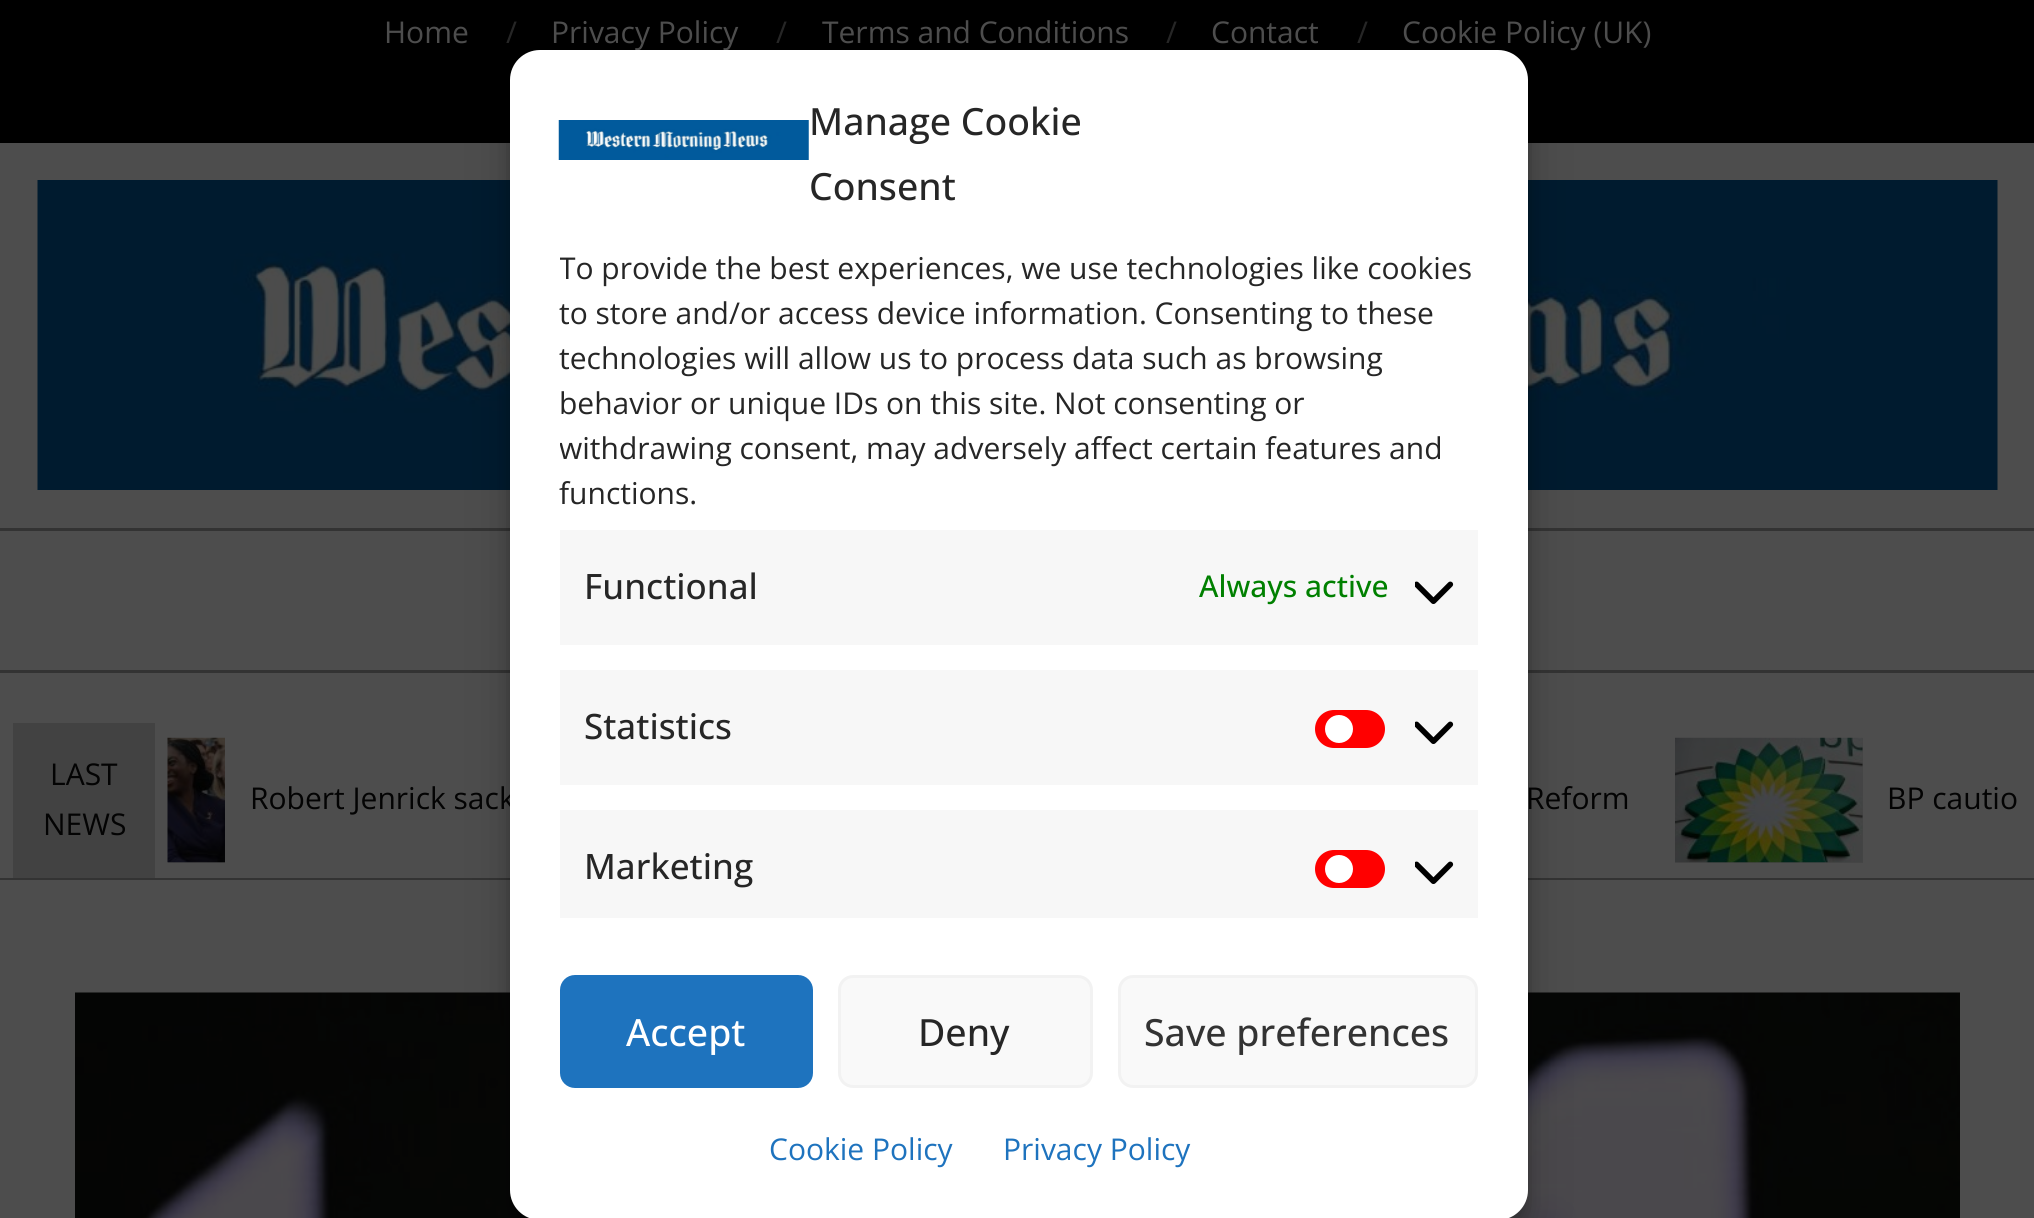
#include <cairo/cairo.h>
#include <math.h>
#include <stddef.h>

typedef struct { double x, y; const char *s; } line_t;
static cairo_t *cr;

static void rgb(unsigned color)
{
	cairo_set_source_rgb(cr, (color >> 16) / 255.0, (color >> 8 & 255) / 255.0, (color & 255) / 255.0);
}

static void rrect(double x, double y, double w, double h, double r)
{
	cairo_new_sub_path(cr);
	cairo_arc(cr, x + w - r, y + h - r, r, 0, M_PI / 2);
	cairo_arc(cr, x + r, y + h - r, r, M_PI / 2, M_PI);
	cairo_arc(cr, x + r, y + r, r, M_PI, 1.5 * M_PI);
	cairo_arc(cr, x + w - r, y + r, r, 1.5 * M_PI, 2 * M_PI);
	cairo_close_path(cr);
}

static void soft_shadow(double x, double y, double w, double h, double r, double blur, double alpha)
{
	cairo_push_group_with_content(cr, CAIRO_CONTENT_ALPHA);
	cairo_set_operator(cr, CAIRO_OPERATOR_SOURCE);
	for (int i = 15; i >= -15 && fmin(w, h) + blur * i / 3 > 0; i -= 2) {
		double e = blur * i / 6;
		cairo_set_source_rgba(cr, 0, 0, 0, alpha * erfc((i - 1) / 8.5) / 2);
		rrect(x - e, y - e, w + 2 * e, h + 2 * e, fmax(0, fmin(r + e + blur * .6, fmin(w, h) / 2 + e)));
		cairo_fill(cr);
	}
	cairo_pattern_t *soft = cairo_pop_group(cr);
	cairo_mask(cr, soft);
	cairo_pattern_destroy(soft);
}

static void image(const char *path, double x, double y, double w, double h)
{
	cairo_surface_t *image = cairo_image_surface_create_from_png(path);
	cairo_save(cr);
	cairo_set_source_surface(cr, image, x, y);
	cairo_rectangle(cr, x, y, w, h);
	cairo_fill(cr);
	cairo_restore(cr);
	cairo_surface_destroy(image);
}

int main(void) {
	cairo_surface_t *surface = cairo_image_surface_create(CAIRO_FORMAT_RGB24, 2034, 1218);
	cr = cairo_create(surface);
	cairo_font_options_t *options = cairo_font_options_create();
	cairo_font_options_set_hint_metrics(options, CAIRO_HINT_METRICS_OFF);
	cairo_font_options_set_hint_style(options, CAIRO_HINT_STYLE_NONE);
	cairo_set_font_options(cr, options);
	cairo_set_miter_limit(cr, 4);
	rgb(0x4d4d4d);
	cairo_paint(cr);
	rgb(0x000000);
	cairo_rectangle(cr, 0, 0, 2034, 143);
	cairo_fill(cr);
	rgb(0x333333);
	cairo_rectangle(cr, 0, 670, 2034, 3);
	cairo_fill(cr);
	image("img/3.png", 37, 180, 1961, 310);
	cairo_rectangle(cr, 0, 528, 2034, 3);
	cairo_fill(cr);
	cairo_rectangle(cr, 0, 878, 2034, 2);
	cairo_fill(cr);
	image("img/6.png", 75, 992, 1885, 226);
	cairo_save(cr);
	cairo_set_fill_rule(cr, CAIRO_FILL_RULE_EVEN_ODD);
	cairo_new_path(cr);
	cairo_move_to(cr, 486, 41);
	cairo_line_to(cr, 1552, 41);
	cairo_line_to(cr, 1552, 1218);
	cairo_line_to(cr, 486, 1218);
	cairo_close_path(cr);
	cairo_move_to(cr, 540, 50);
	cairo_line_to(cr, 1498, 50);
	cairo_curve_to(cr, 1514.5, 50, 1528, 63.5, 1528, 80);
	cairo_line_to(cr, 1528, 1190);
	cairo_curve_to(cr, 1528, 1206.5, 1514.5, 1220, 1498, 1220);
	cairo_line_to(cr, 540, 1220);
	cairo_curve_to(cr, 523.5, 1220, 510, 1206.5, 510, 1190);
	cairo_line_to(cr, 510, 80);
	cairo_curve_to(cr, 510, 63.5, 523.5, 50, 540, 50);
	cairo_close_path(cr);
	cairo_clip(cr);
	rgb(0x000000);
	soft_shadow(510, 65, 1018, 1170, 30, 7.5, 0.23);
	cairo_restore(cr);
	rgb(0x000000);
	soft_shadow(510, 75, 1018, 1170, 30, 25, 0.19);
	rgb(0x424242);
	cairo_rectangle(cr, 13, 723, 142, 155);
	cairo_fill(cr);
	rgb(0x454545);
	cairo_rectangle(cr, 168, 862, 57, 1);
	cairo_fill(cr);
	image("img/4.png", 167, 737, 58, 126);
	cairo_rectangle(cr, 1675, 738, 188, 125);
	cairo_fill(cr);
	image("img/5.png", 1675, 737, 188, 126);
	cairo_select_font_face(cr, "Open Sans", CAIRO_FONT_SLANT_NORMAL, CAIRO_FONT_WEIGHT_NORMAL);
	cairo_set_font_size(cr, 30);
	rgb(0x4d4d4d);
	cairo_move_to(cr, 384, 43);
	cairo_show_text(cr, "Home");
	rgb(0x262626);
	cairo_move_to(cr, 506, 43);
	cairo_show_text(cr, "/");
	rgb(0x4d4d4d);
	cairo_move_to(cr, 551, 43);
	cairo_show_text(cr, "Privacy Policy");
	rgb(0x262626);
	cairo_move_to(cr, 776, 43);
	cairo_show_text(cr, "/");
	rgb(0x4d4d4d);
	cairo_move_to(cr, 822, 43);
	cairo_show_text(cr, "Terms and Conditions");
	rgb(0x262626);
	cairo_move_to(cr, 1166, 43);
	cairo_show_text(cr, "/");
	rgb(0x4d4d4d);
	cairo_move_to(cr, 1211, 43);
	cairo_show_text(cr, "Contact");
	rgb(0x262626);
	cairo_move_to(cr, 1357, 43);
	cairo_show_text(cr, "/");
	rgb(0x4d4d4d);
	cairo_move_to(cr, 1402, 43);
	cairo_show_text(cr, "Cookie Policy (UK)");
	rgb(0x030303);
	{
		static const line_t items[] = {
			{50, 785, "LAST"},
			{43, 835, "NEWS"},
			{250, 809, "Robert Jenrick sack"},
		};
		for (size_t i = 0; i < sizeof items / sizeof *items; i++) {
			cairo_move_to(cr, items[i].x, items[i].y);
			cairo_show_text(cr, items[i].s);
		}
	}
	rgb(0xffffff);
	rrect(510, 50, 1018, 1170, 30);
	cairo_fill(cr);
	rgb(0xf7f7f7);
	cairo_rectangle(cr, 560, 810, 918, 108);
	cairo_fill(cr);
	image("img/2.png", 1415, 861, 39, 23);
	rgb(0xff0000);
	rrect(1315, 850, 70, 38, 19);
	cairo_fill(cr);
	rgb(0xffffff);
	cairo_arc(cr, 1339, 869, 14, 0, 2 * M_PI);
	cairo_fill(cr);
	rgb(0xf7f7f7);
	cairo_rectangle(cr, 560, 670, 918, 115);
	cairo_fill(cr);
	image("img/2.png", 1415, 721, 39, 23);
	rgb(0xff0000);
	rrect(1315, 710, 70, 38, 19);
	cairo_fill(cr);
	rgb(0xffffff);
	cairo_arc(cr, 1339, 729, 14, 0, 2 * M_PI);
	cairo_fill(cr);
	rgb(0xf7f7f7);
	cairo_rectangle(cr, 560, 530, 918, 115);
	cairo_fill(cr);
	image("img/2.png", 1415, 581, 39, 23);
	cairo_select_font_face(cr, "Open Sans Medium", CAIRO_FONT_SLANT_NORMAL, CAIRO_FONT_WEIGHT_NORMAL);
	cairo_set_font_size(cr, 35);
	rgb(0x262626);
	cairo_move_to(cr, 584, 879);
	cairo_show_text(cr, "Marketing");
	cairo_move_to(cr, 584, 739);
	cairo_show_text(cr, "Statistics");
	cairo_set_font_size(cr, 30);
	rgb(0x008000);
	cairo_move_to(cr, 1199, 597);
	cairo_show_text(cr, "Always active");
	cairo_set_font_size(cr, 35);
	rgb(0x262626);
	cairo_move_to(cr, 584, 599);
	cairo_show_text(cr, "Functional");
	cairo_select_font_face(cr, "Open Sans", CAIRO_FONT_SLANT_NORMAL, CAIRO_FONT_WEIGHT_NORMAL);
	cairo_set_font_size(cr, 30);
	cairo_move_to(cr, 559, 504);
	cairo_show_text(cr, "functions.");
	cairo_save(cr);
	cairo_rectangle(cr, 560, 248, 918, 670);
	cairo_clip(cr);
	cairo_move_to(cr, 559, 459);
	cairo_show_text(cr, "withdrawing consent, may adversely affect certain features and");
	cairo_restore(cr);
	{
		static const line_t items[] = {
			{559, 414, "behavior or unique IDs on this site. Not consenting or"},
			{559, 369, "technologies will allow us to process data such as browsing"},
			{559, 324, "to store and/or access device information. Consenting to these"},
		};
		for (size_t i = 0; i < sizeof items / sizeof *items; i++) {
			cairo_move_to(cr, items[i].x, items[i].y);
			cairo_show_text(cr, items[i].s);
		}
	}
	cairo_save(cr);
	cairo_rectangle(cr, 560, 248, 918, 670);
	cairo_clip(cr);
	cairo_move_to(cr, 559, 279);
	cairo_show_text(cr, "To provide the best experiences, we use technologies like cookies");
	cairo_restore(cr);
	rgb(0x1e73be);
	cairo_move_to(cr, 1003, 1160);
	cairo_show_text(cr, "Privacy Policy");
	cairo_move_to(cr, 769, 1160);
	cairo_show_text(cr, "Cookie Policy");
	rgb(0xf9f9f9);
	rrect(1119.5, 976.5, 357, 110, 13.5);
	cairo_fill_preserve(cr);
	rgb(0xf2f2f2);
	cairo_set_line_width(cr, 3);
	cairo_stroke(cr);
	cairo_select_font_face(cr, "Open Sans Medium", CAIRO_FONT_SLANT_NORMAL, CAIRO_FONT_WEIGHT_NORMAL);
	cairo_set_font_size(cr, 37.5);
	rgb(0x333333);
	cairo_move_to(cr, 1144, 1046);
	cairo_show_text(cr, "Save preferences");
	rgb(0xf9f9f9);
	rrect(839.5, 976.5, 252, 110, 13.5);
	cairo_fill_preserve(cr);
	rgb(0xf2f2f2);
	cairo_stroke(cr);
	rgb(0x262626);
	cairo_move_to(cr, 918, 1046);
	cairo_show_text(cr, "Deny");
	rgb(0x1e73be);
	rrect(561.5, 976.5, 250, 110, 13.5);
	cairo_fill_preserve(cr);
	cairo_stroke(cr);
	rgb(0xffffff);
	cairo_move_to(cr, 626, 1046);
	cairo_show_text(cr, "Accept");
	rgb(0x262626);
	cairo_move_to(cr, 809, 200);
	cairo_show_text(cr, "Consent");
	cairo_move_to(cr, 809, 135);
	cairo_show_text(cr, "Manage Cookie");
	image("img/1.png", 558, 120, 251, 40);
	cairo_select_font_face(cr, "Open Sans", CAIRO_FONT_SLANT_NORMAL, CAIRO_FONT_WEIGHT_NORMAL);
	cairo_set_font_size(cr, 30);
	rgb(0x030303);
	cairo_move_to(cr, 1526, 809);
	cairo_show_text(cr, "Reform");
	cairo_move_to(cr, 1887, 809);
	cairo_show_text(cr, "BP cautio");
	cairo_surface_write_to_png(surface, "page.png");
	cairo_font_options_destroy(options);
	cairo_destroy(cr);
	cairo_surface_destroy(surface);
	return 0;
}
